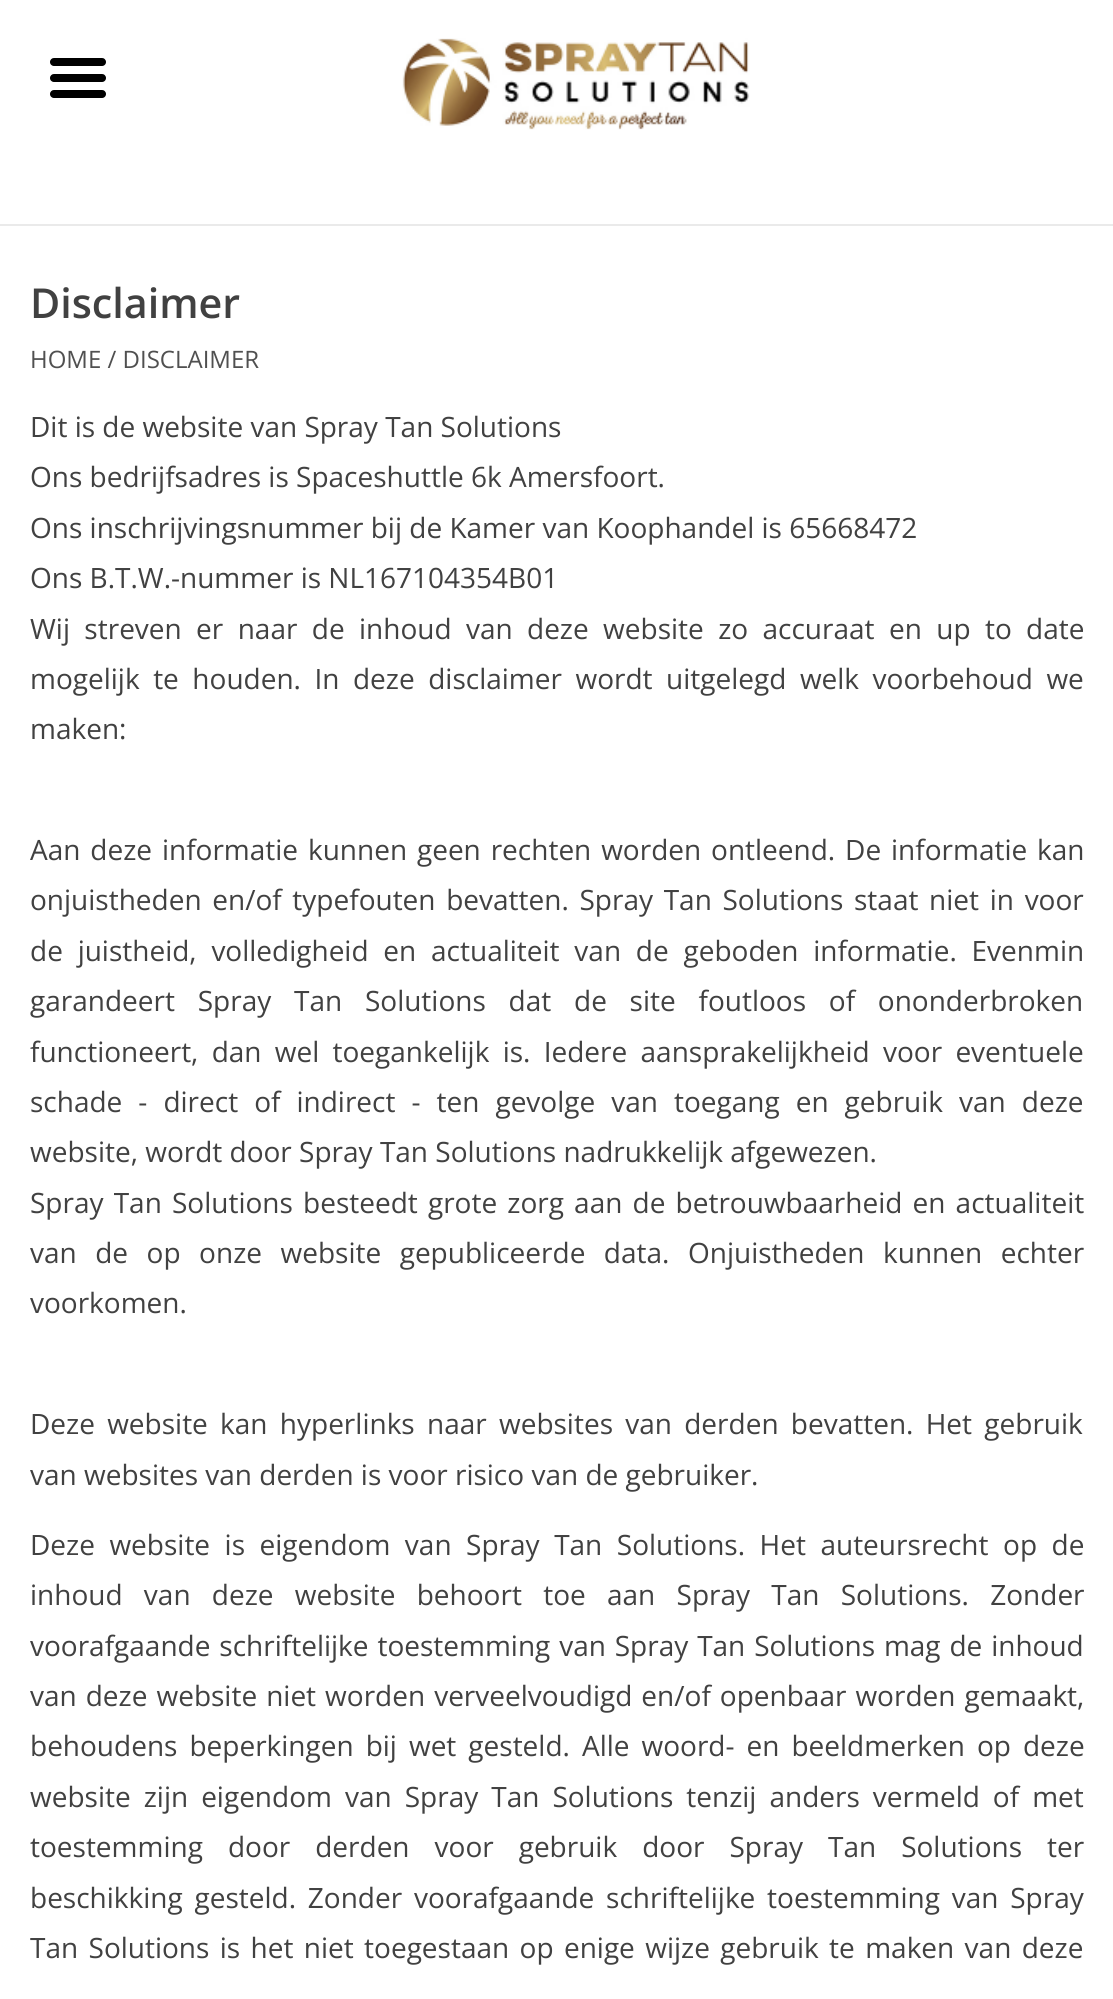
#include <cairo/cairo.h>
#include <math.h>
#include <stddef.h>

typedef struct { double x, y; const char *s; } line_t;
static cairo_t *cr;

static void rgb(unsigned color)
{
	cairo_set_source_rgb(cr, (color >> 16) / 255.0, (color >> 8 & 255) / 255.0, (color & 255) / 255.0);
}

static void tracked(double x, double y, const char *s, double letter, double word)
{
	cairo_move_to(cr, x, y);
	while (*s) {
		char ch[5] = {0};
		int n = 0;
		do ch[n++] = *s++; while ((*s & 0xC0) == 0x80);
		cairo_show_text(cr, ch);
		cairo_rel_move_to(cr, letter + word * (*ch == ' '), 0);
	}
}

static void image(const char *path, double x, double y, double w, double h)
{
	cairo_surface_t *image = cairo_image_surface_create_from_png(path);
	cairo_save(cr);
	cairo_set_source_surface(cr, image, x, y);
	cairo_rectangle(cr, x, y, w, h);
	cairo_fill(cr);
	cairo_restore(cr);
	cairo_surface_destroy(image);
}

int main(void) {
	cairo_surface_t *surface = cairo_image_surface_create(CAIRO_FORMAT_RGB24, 1113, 1999);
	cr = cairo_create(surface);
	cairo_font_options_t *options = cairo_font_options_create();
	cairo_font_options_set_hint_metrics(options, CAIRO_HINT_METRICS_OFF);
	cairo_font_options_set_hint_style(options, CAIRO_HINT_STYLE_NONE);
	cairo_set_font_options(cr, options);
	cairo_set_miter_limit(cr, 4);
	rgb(0xffffff);
	cairo_paint(cr);
	rgb(0xeaeaea);
	cairo_rectangle(cr, 0, 224, 1113, 2);
	cairo_fill(cr);
	image("img/1.png", 402, 38, 348, 92);
	image("img/2.png", 50, 58, 56, 40);
	cairo_select_font_face(cr, "Open Sans SemiBold", CAIRO_FONT_SLANT_NORMAL, CAIRO_FONT_WEIGHT_NORMAL);
	cairo_set_font_size(cr, 41.25);
	rgb(0x414141);
	cairo_move_to(cr, 30, 318);
	cairo_show_text(cr, "Disclaimer");
	cairo_select_font_face(cr, "Open Sans", CAIRO_FONT_SLANT_NORMAL, CAIRO_FONT_WEIGHT_NORMAL);
	cairo_set_font_size(cr, 24);
	rgb(0x505050);
	cairo_move_to(cr, 30, 368);
	cairo_show_text(cr, "HOME / DISCLAIMER");
	cairo_set_font_size(cr, 28);
	rgb(0x414141);
	{
		static const line_t items[] = {
			{30, 437, "Dit is de website van Spray Tan Solutions"},
			{30, 487, "Ons bedrijfsadres is Spaceshuttle 6k Amersfoort."},
			{30, 538, "Ons inschrijvingsnummer bij de Kamer van Koophandel is 65668472"},
			{30, 588, "Ons B.T.W.-nummer is NL167104354B01"},
		};
		for (size_t i = 0; i < sizeof items / sizeof *items; i++) {
			cairo_move_to(cr, items[i].x, items[i].y);
			cairo_show_text(cr, items[i].s);
		}
	}
	tracked(30, 639, "Wij streven er naar de inhoud van deze website zo accuraat en up to date", 0, 7.1);
	tracked(30, 689, "mogelijk te houden. In deze disclaimer wordt uitgelegd welk voorbehoud we", 0, 6.25);
	cairo_move_to(cr, 30, 739);
	cairo_show_text(cr, "maken:");
	tracked(30, 860, "Aan deze informatie kunnen geen rechten worden ontleend. De informatie kan", 0, 2.6);
	tracked(30, 910, "onjuistheden en/of typefouten bevatten. Spray Tan Solutions staat niet in voor", 0, 3.4);
	tracked(30, 961, "de juistheid, volledigheid en actualiteit van de geboden informatie. Evenmin", 0, 7.5);
	tracked(30, 1011, "garandeert Spray Tan Solutions dat de site foutloos of ononderbroken", 0, 15.5);
	tracked(30, 1062, "functioneert, dan wel toegankelijk is. Iedere aansprakelijkheid voor eventuele", 0, 6);
	tracked(30, 1112, "schade - direct of indirect - ten gevolge van toegang en gebruik van deze", 0, 8.75);
	cairo_move_to(cr, 30, 1162);
	cairo_show_text(cr, "website, wordt door Spray Tan Solutions nadrukkelijk afgewezen.");
	tracked(30, 1213, "Spray Tan Solutions besteedt grote zorg aan de betrouwbaarheid en actualiteit", 0, 2.9);
	tracked(30, 1263, "van de op onze website gepubliceerde data. Onjuistheden kunnen echter", 0, 11.25);
	cairo_move_to(cr, 30, 1313);
	cairo_show_text(cr, "voorkomen.");
	tracked(30, 1434, "Deze website kan hyperlinks naar websites van derden bevatten. Het gebruik", 0, 5);
	cairo_move_to(cr, 30, 1485);
	cairo_show_text(cr, "van websites van derden is voor risico van de gebruiker.");
	tracked(30, 1555, "Deze website is eigendom van Spray Tan Solutions. Het auteursrecht op de", 0, 7.25);
	tracked(30, 1605, "inhoud van deze website behoort toe aan Spray Tan Solutions. Zonder", 0, 14);
	tracked(30, 1656, "voorafgaande schriftelijke toestemming van Spray Tan Solutions mag de inhoud", 0, 1.6);
	tracked(30, 1706, "van deze website niet worden verveelvoudigd en/of openbaar worden gemaakt,", 0, 1.75);
	tracked(30, 1756, "behoudens beperkingen bij wet gesteld. Alle woord- en beeldmerken op deze", 0, 4.75);
	tracked(30, 1807, "website zijn eigendom van Spray Tan Solutions tenzij anders vermeld of met", 0, 5.75);
	tracked(30, 1857, "toestemming door derden voor gebruik door Spray Tan Solutions ter", 0, 17.75);
	tracked(30, 1908, "beschikking gesteld. Zonder voorafgaande schriftelijke toestemming van Spray", 0, 4.5);
	tracked(30, 1958, "Tan Solutions is het niet toegestaan op enige wijze gebruik te maken van deze", 0, 3.1);
	cairo_surface_write_to_png(surface, "page.png");
	cairo_font_options_destroy(options);
	cairo_destroy(cr);
	cairo_surface_destroy(surface);
	return 0;
}
